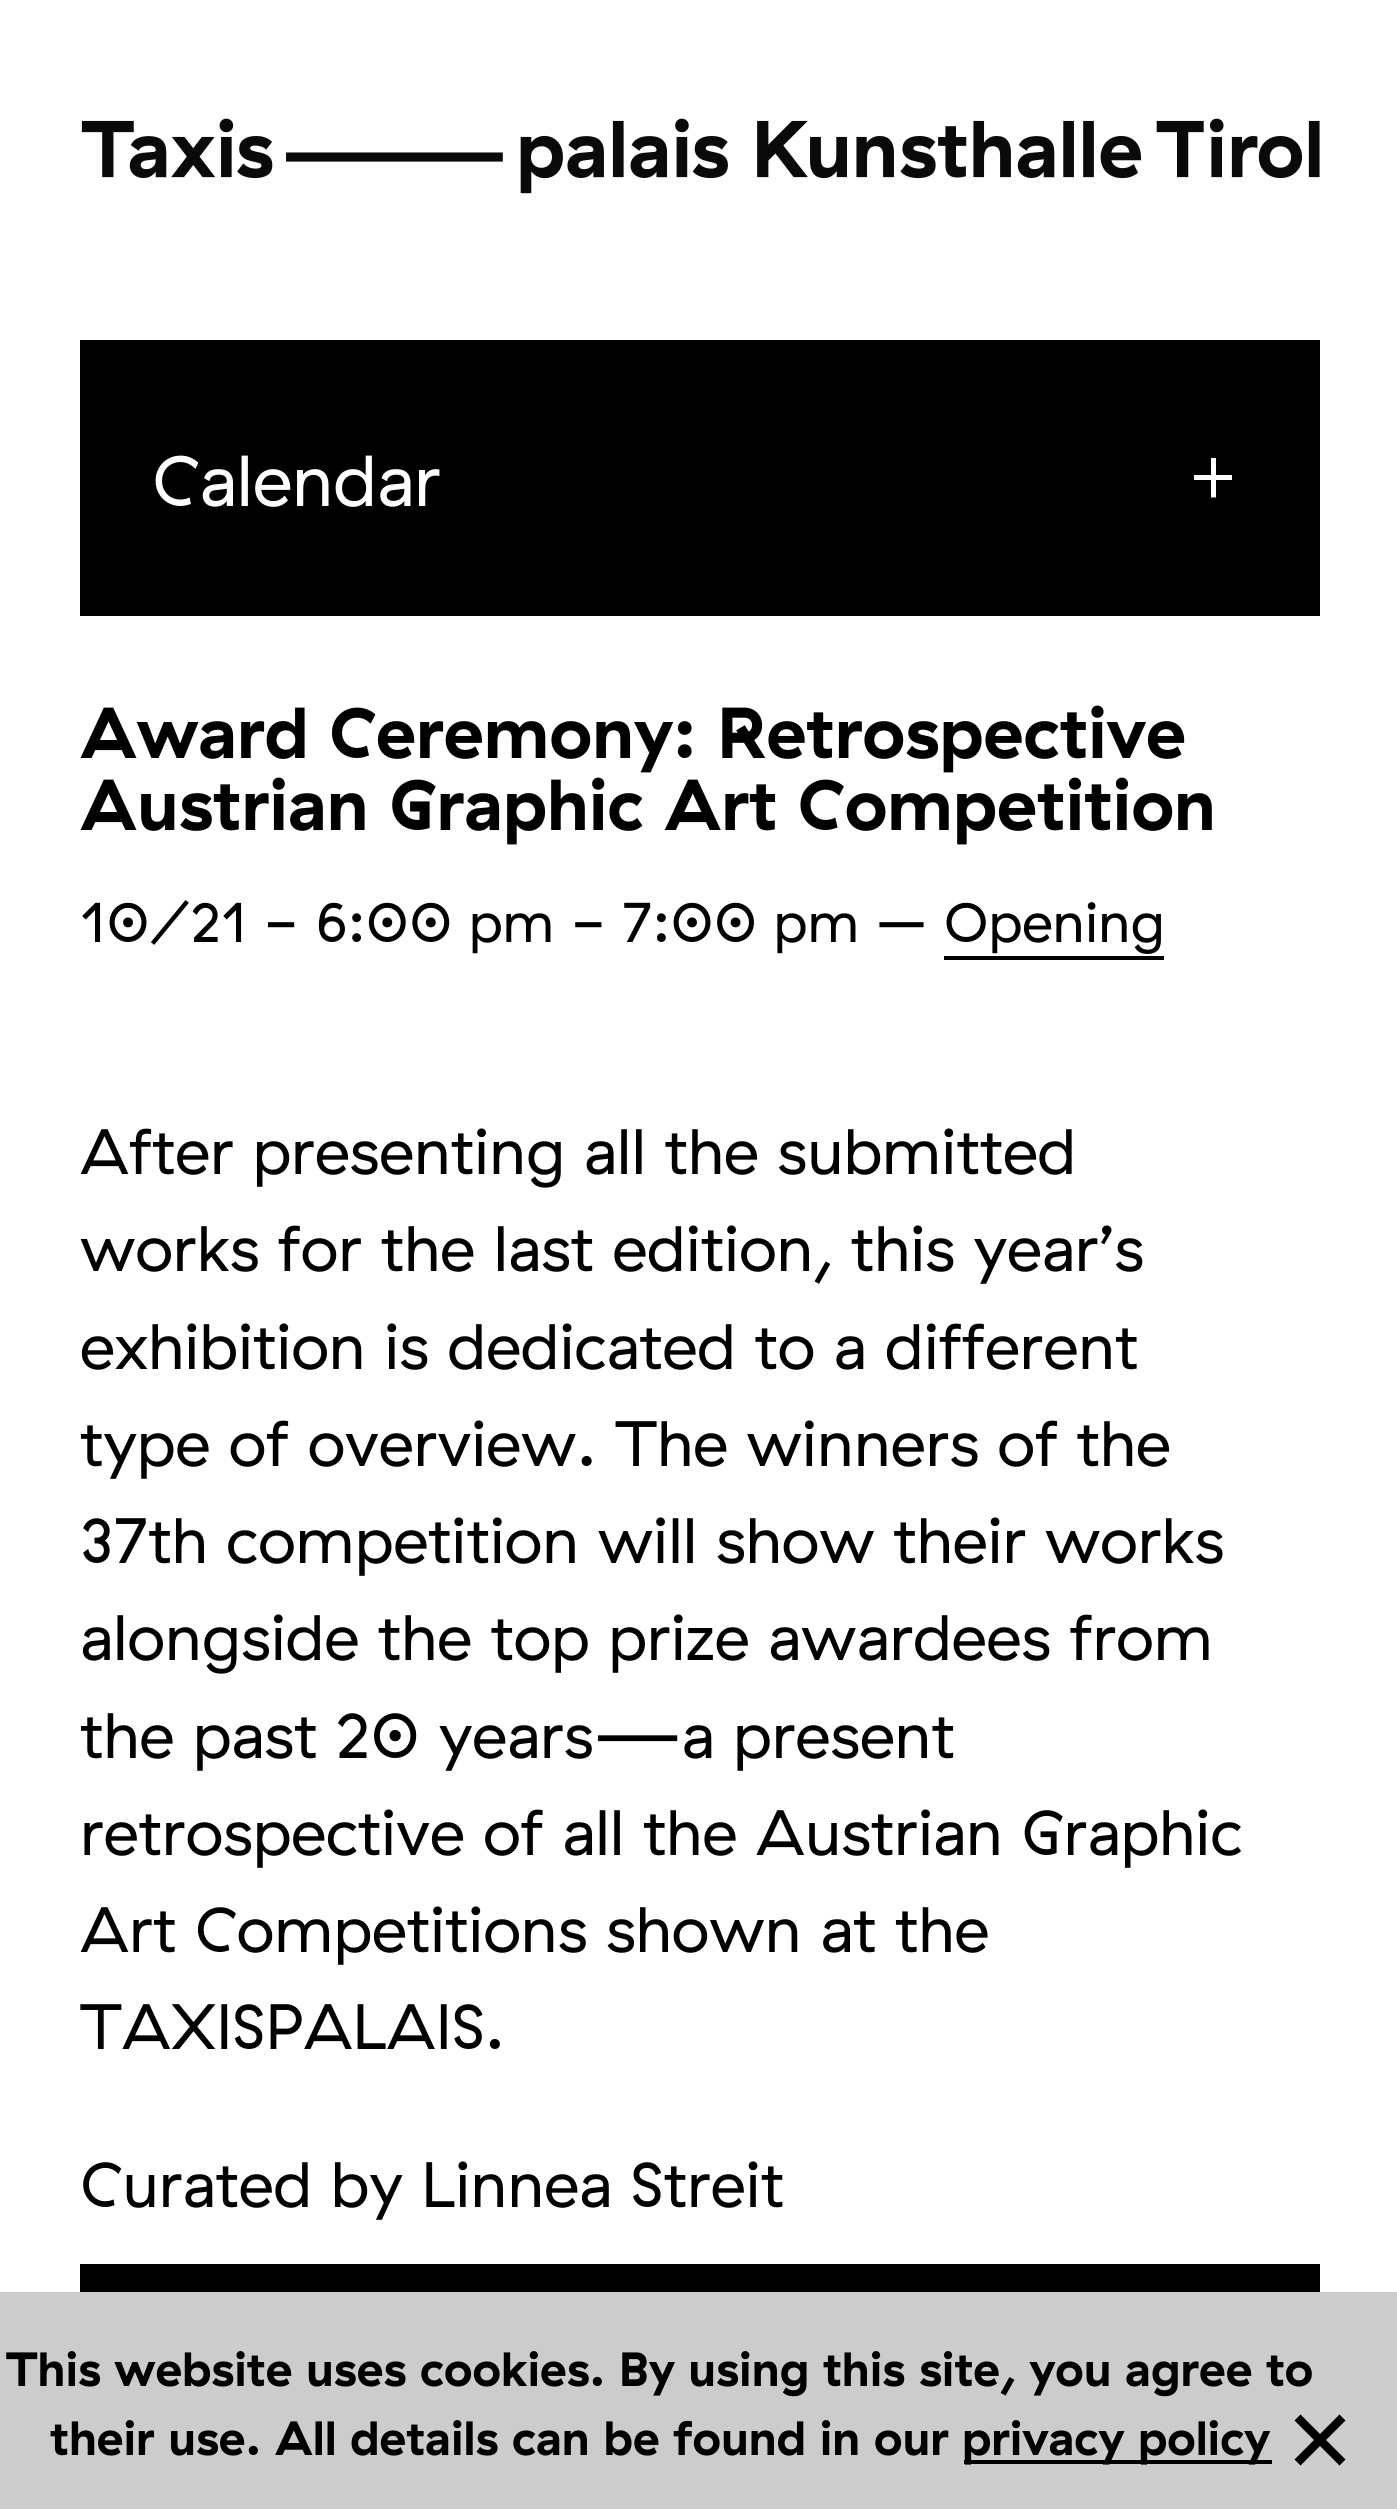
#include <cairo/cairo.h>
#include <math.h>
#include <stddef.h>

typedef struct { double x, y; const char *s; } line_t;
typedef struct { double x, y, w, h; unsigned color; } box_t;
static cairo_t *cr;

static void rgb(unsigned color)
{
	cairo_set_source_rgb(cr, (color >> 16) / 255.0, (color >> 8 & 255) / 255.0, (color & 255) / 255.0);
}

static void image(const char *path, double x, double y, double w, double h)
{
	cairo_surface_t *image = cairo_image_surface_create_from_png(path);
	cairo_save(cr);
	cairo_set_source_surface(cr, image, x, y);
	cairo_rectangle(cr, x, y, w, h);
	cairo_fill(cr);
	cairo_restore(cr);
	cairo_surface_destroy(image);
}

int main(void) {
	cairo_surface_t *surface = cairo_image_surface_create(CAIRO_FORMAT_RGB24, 1397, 2509);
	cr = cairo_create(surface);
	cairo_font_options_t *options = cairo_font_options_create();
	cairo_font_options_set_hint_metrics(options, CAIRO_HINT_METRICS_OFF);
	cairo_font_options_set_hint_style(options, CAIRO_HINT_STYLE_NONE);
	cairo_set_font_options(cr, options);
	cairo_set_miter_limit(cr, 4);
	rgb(0xffffff);
	cairo_paint(cr);
	rgb(0x000000);
	cairo_rectangle(cr, 80, 340, 1240, 276);
	cairo_fill(cr);
	rgb(0xffffff);
	cairo_new_path(cr);
	cairo_move_to(cr, 1194, 475);
	cairo_line_to(cr, 1211, 475);
	cairo_line_to(cr, 1211, 458);
	cairo_line_to(cr, 1216, 458);
	cairo_line_to(cr, 1216, 475);
	cairo_line_to(cr, 1232, 475);
	cairo_line_to(cr, 1232, 480);
	cairo_line_to(cr, 1216, 480);
	cairo_line_to(cr, 1216, 497.5);
	cairo_line_to(cr, 1211, 497.5);
	cairo_line_to(cr, 1211, 480);
	cairo_line_to(cr, 1194, 480);
	cairo_close_path(cr);
	cairo_fill(cr);
	rgb(0x000000);
	cairo_rectangle(cr, 944, 956, 220, 4);
	cairo_fill(cr);
	image("img/1.png", 81, 118, 1239, 76);
	{
		static const box_t items[] = {
			{80, 2264, 1240, 28, 0x000000},
			{0, 2292, 1397, 217, 0xcccccc},
			{964, 2460, 308, 4, 0x000000},
		};
		for (size_t i = 0; i < sizeof items / sizeof *items; i++) {
			rgb(items[i].color);
			cairo_rectangle(cr, items[i].x, items[i].y, items[i].w, items[i].h);
			cairo_fill(cr);
		}
	}
	cairo_new_path(cr);
	cairo_move_to(cr, 1339.5, 2420.5);
	cairo_line_to(cr, 1300.5, 2459.5);
	cairo_move_to(cr, 1339.5, 2459.5);
	cairo_line_to(cr, 1300.5, 2420.5);
	cairo_set_line_width(cr, 8.5);
	cairo_set_line_cap(cr, CAIRO_LINE_CAP_SQUARE);
	cairo_stroke(cr);
	cairo_select_font_face(cr, "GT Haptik", CAIRO_FONT_SLANT_NORMAL, CAIRO_FONT_WEIGHT_NORMAL);
	cairo_set_font_size(cr, 72);
	rgb(0xffffff);
	cairo_move_to(cr, 152, 506);
	cairo_show_text(cr, "Calendar");
	cairo_select_font_face(cr, "GT Haptik", CAIRO_FONT_SLANT_NORMAL, CAIRO_FONT_WEIGHT_BOLD);
	rgb(0x000000);
	cairo_move_to(cr, 80, 758);
	cairo_show_text(cr, "Award Ceremony: Retrospective");
	cairo_move_to(cr, 80, 830);
	cairo_show_text(cr, "Austrian Graphic Art Competition");
	cairo_select_font_face(cr, "GT Haptik", CAIRO_FONT_SLANT_NORMAL, CAIRO_FONT_WEIGHT_NORMAL);
	cairo_set_font_size(cr, 56);
	cairo_move_to(cr, 80, 942);
	cairo_show_text(cr, "10/21 - 6:00 pm - 7:00 pm – Opening");
	cairo_set_font_size(cr, 64);
	{
		static const line_t items[] = {
			{80, 1174, "After presenting all the submitted"},
			{80, 1271, "works for the last edition, this year’s"},
			{80, 1369, "exhibition is dedicated to a different"},
			{80, 1466, "type of overview. The winners of the"},
			{80, 1563, "37th competition will show their works"},
			{80, 1660, "alongside the top prize awardees from"},
			{80, 1758, "the past 20 years—a present"},
			{80, 1855, "retrospective of all the Austrian Graphic"},
			{80, 1952, "Art Competitions shown at the"},
			{80, 2049, "TAXISPALAIS."},
			{80, 2207, "Curated by Linnea Streit"},
		};
		for (size_t i = 0; i < sizeof items / sizeof *items; i++) {
			cairo_move_to(cr, items[i].x, items[i].y);
			cairo_show_text(cr, items[i].s);
		}
	}
	cairo_select_font_face(cr, "GT Haptik", CAIRO_FONT_SLANT_NORMAL, CAIRO_FONT_WEIGHT_BOLD);
	cairo_set_font_size(cr, 48);
	{
		static const line_t items[] = {
			{6, 2386, "This website uses cookies. By using this site, you agree to"},
			{50, 2455, "their use. All details can be found in our"},
			{962, 2455, "privacy policy"},
		};
		for (size_t i = 0; i < sizeof items / sizeof *items; i++) {
			cairo_move_to(cr, items[i].x, items[i].y);
			cairo_show_text(cr, items[i].s);
		}
	}
	cairo_surface_write_to_png(surface, "page.png");
	cairo_font_options_destroy(options);
	cairo_destroy(cr);
	cairo_surface_destroy(surface);
	return 0;
}
